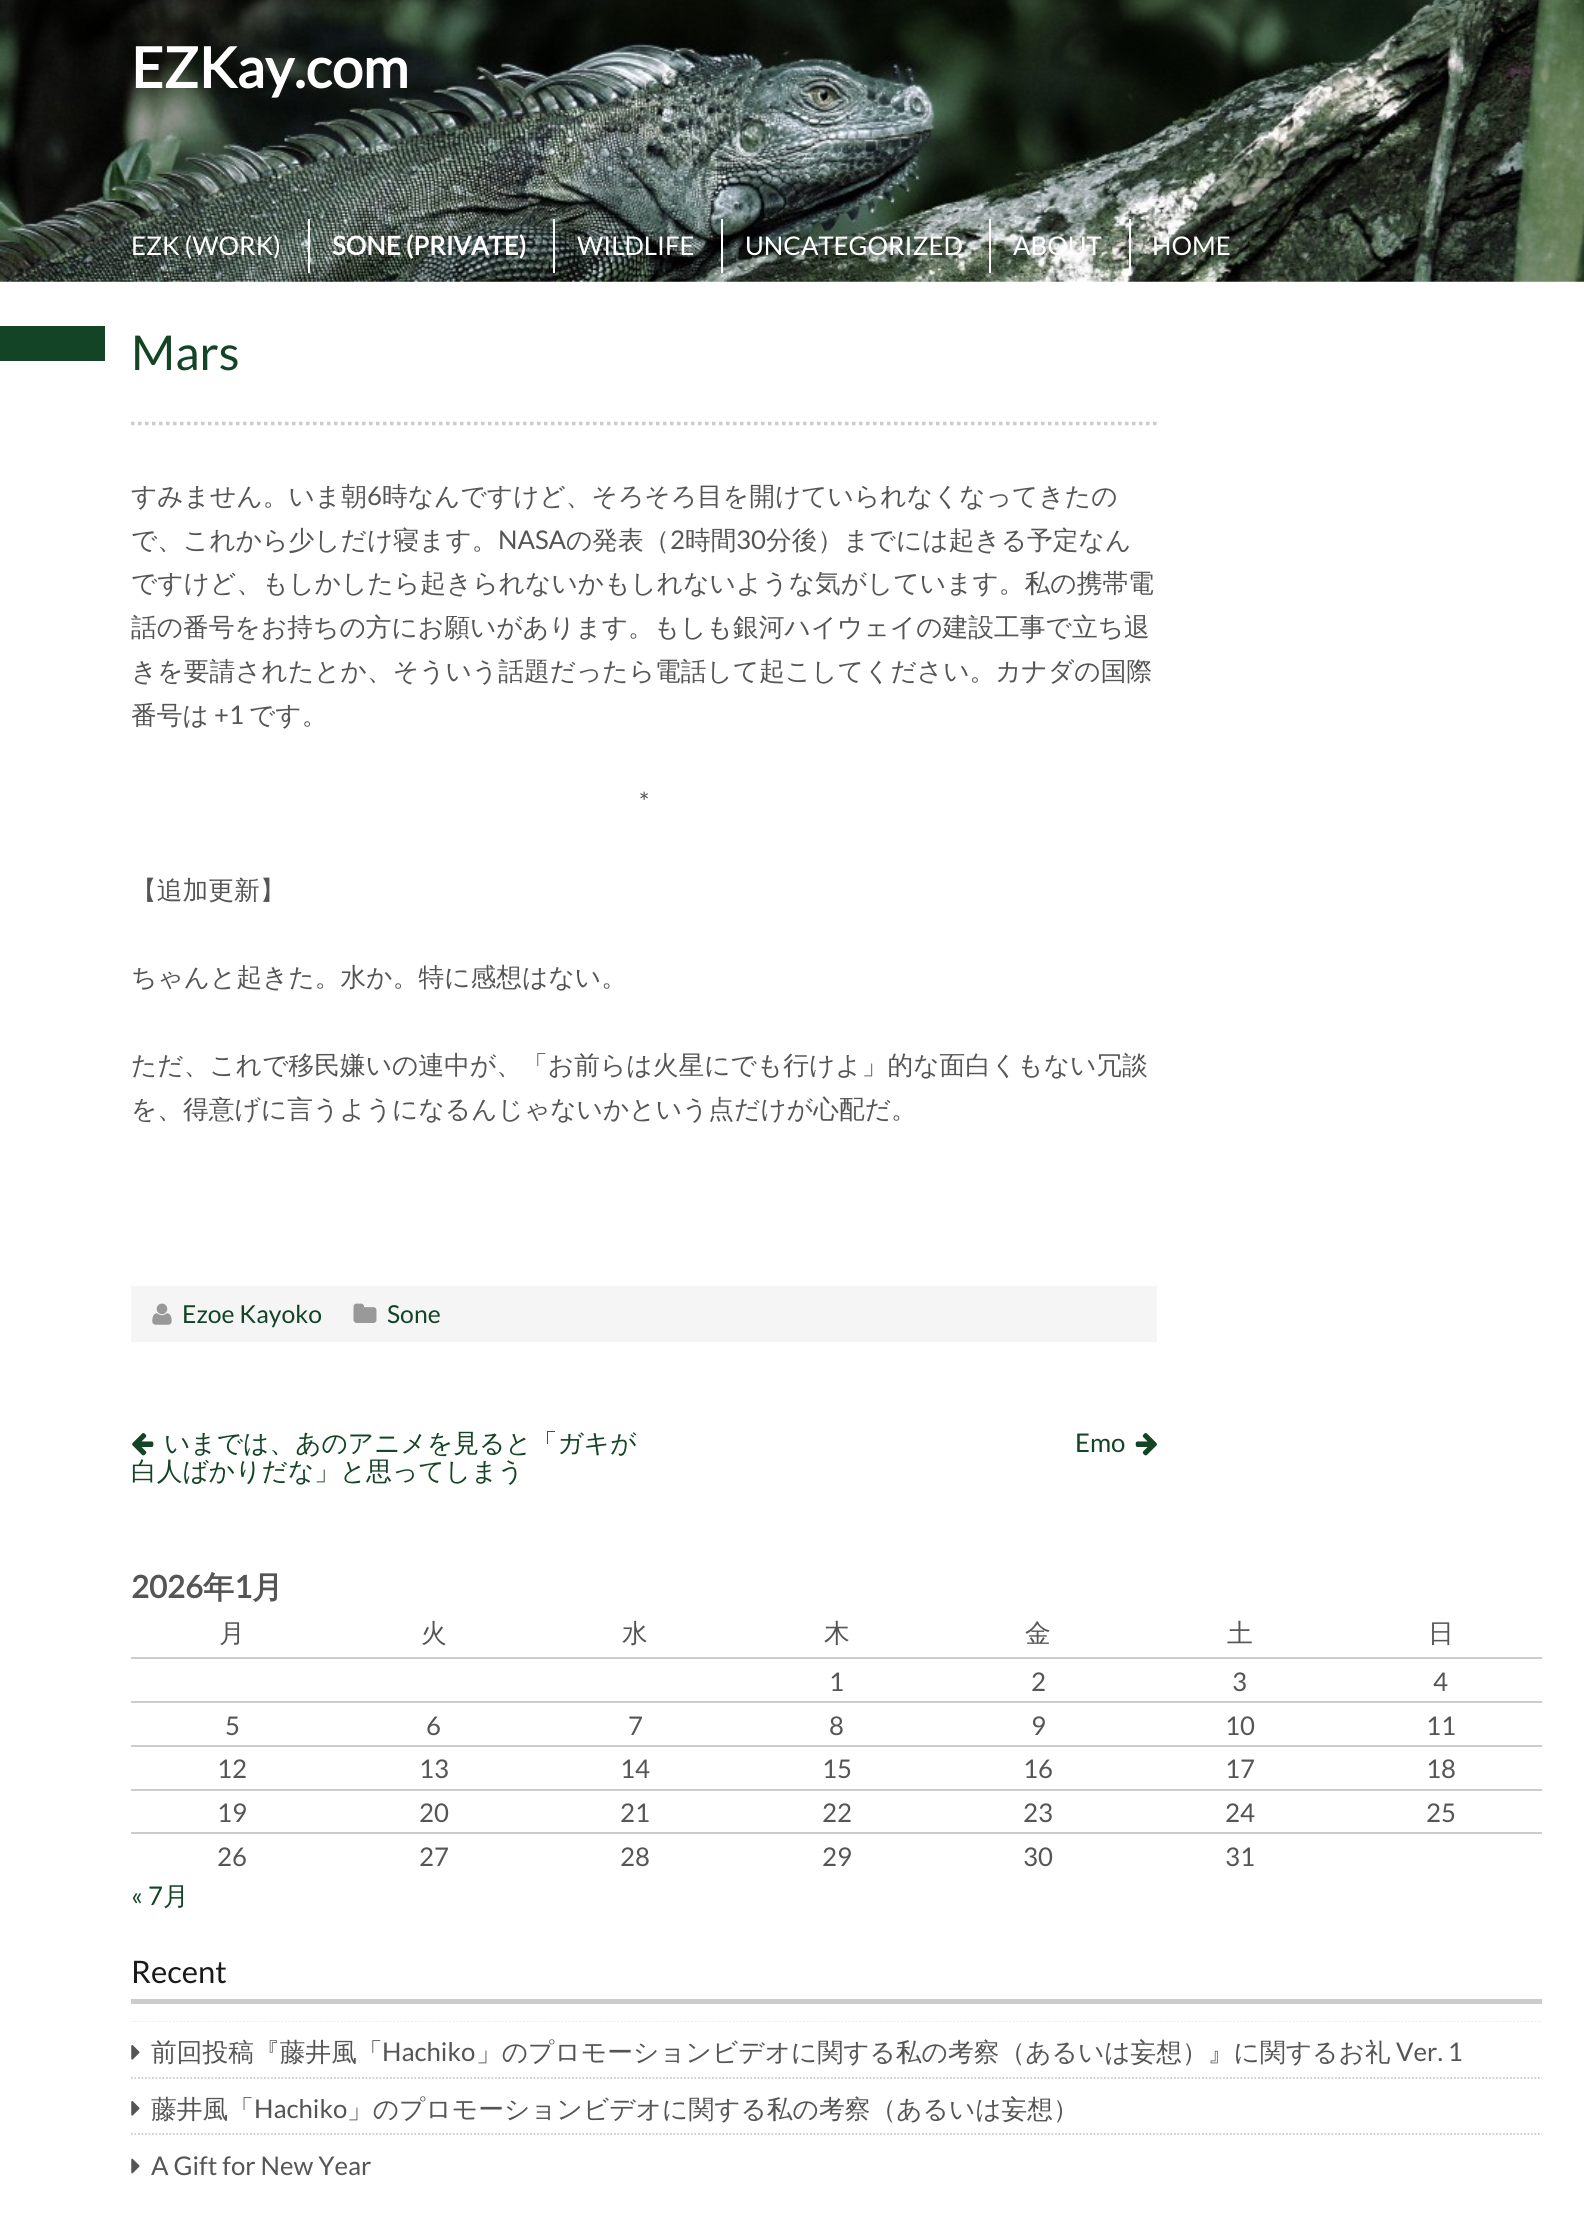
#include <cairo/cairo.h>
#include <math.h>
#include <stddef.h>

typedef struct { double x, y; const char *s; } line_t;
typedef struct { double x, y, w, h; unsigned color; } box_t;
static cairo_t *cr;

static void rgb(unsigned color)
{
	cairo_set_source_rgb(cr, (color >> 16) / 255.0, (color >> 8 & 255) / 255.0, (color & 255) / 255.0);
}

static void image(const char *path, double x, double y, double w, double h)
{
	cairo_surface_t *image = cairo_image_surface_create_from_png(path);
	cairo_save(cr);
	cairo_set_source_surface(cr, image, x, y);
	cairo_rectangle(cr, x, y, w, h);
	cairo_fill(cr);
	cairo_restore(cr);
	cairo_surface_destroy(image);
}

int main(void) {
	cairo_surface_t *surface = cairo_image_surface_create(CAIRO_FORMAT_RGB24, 1584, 2222);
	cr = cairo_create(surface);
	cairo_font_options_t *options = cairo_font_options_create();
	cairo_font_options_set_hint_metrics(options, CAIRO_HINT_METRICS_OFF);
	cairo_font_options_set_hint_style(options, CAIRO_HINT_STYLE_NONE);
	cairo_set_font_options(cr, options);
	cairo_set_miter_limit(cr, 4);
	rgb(0xffffff);
	cairo_paint(cr);
	image("img/1.png", 0, 0, 1584, 282);
	{
		static const box_t items[] = {
			{308, 219, 2, 54, 0xffffff},
			{553, 219, 2, 54, 0xffffff},
			{721, 219, 2, 54, 0xffffff},
			{989, 219, 2, 54, 0xffffff},
			{1129, 219, 2, 54, 0xffffff},
			{0, 326, 105, 35, 0x134425},
		};
		for (size_t i = 0; i < sizeof items / sizeof *items; i++) {
			rgb(items[i].color);
			cairo_rectangle(cr, items[i].x, items[i].y, items[i].w, items[i].h);
			cairo_fill(cr);
		}
	}
	cairo_new_path(cr);
	cairo_move_to(cr, 131, 423.5);
	cairo_line_to(cr, 1157, 423.5);
	rgb(0xcccccc);
	cairo_set_line_width(cr, 3.5);
	cairo_set_dash(cr, (double[]){3.5, 3.5}, 2, 0);
	cairo_stroke(cr);
	rgb(0xf5f5f5);
	cairo_rectangle(cr, 131, 1286, 1026, 56);
	cairo_fill(cr);
	image("img/2.png", 152, 1303, 20, 22);
	image("img/3.png", 353, 1303, 24, 20);
	image("img/4.png", 132, 1433, 22, 23);
	image("img/5.png", 1135, 1433, 22, 23);
	{
		static const box_t items[] = {
			{131, 1657, 1411, 2, 0xcccccc},
			{131, 1701, 1411, 2, 0xcccccc},
			{131, 1745, 1411, 2, 0xcccccc},
			{131, 1789, 1411, 2, 0xcccccc},
			{131, 1832, 1411, 2, 0xcccccc},
			{131, 1999, 1411, 5, 0xcccccc},
		};
		for (size_t i = 0; i < sizeof items / sizeof *items; i++) {
			rgb(items[i].color);
			cairo_rectangle(cr, items[i].x, items[i].y, items[i].w, items[i].h);
			cairo_fill(cr);
		}
	}
	cairo_save(cr);
	cairo_rectangle(cr, 131, 2021, 1411, 172);
	cairo_clip(cr);
	cairo_new_path(cr);
	cairo_move_to(cr, 131, 2020.5);
	cairo_line_to(cr, 1542, 2020.5);
	cairo_set_line_width(cr, 1.8);
	cairo_set_dash(cr, (double[]){1.75, 1.75}, 2, 0);
	cairo_stroke(cr);
	cairo_restore(cr);
	image("img/6.png", 131, 2045, 9, 15);
	cairo_new_path(cr);
	cairo_move_to(cr, 131, 2078);
	cairo_line_to(cr, 1542, 2078);
	cairo_set_line_width(cr, 1.8);
	cairo_set_dash(cr, (double[]){1.75, 1.75}, 2, 0);
	cairo_stroke(cr);
	image("img/6.png", 131, 2101, 9, 15);
	cairo_new_path(cr);
	cairo_move_to(cr, 131, 2134);
	cairo_line_to(cr, 1542, 2134);
	cairo_stroke(cr);
	image("img/7.png", 131, 2158, 9, 16);
	cairo_select_font_face(cr, "Lato", CAIRO_FONT_SLANT_NORMAL, CAIRO_FONT_WEIGHT_BOLD);
	cairo_set_font_size(cr, 56);
	rgb(0xffffff);
	cairo_move_to(cr, 131, 88);
	cairo_show_text(cr, "EZKay.com");
	cairo_select_font_face(cr, "Lato", CAIRO_FONT_SLANT_NORMAL, CAIRO_FONT_WEIGHT_NORMAL);
	cairo_set_font_size(cr, 25.75);
	cairo_move_to(cr, 131, 255);
	cairo_show_text(cr, "EZK (WORK)");
	cairo_select_font_face(cr, "Lato", CAIRO_FONT_SLANT_NORMAL, CAIRO_FONT_WEIGHT_BOLD);
	cairo_move_to(cr, 332, 255);
	cairo_show_text(cr, "SONE (PRIVATE)");
	cairo_select_font_face(cr, "Lato", CAIRO_FONT_SLANT_NORMAL, CAIRO_FONT_WEIGHT_NORMAL);
	{
		static const line_t items[] = {
			{577, 255, "WILDLIFE"},
			{745, 255, "UNCATEGORIZED"},
			{1013, 255, "ABOUT"},
			{1152, 255, "HOME"},
		};
		for (size_t i = 0; i < sizeof items / sizeof *items; i++) {
			cairo_move_to(cr, items[i].x, items[i].y);
			cairo_show_text(cr, items[i].s);
		}
	}
	cairo_set_font_size(cr, 48);
	rgb(0x134425);
	cairo_move_to(cr, 131, 370);
	cairo_show_text(cr, "Mars");
	cairo_select_font_face(cr, "WenQuanYi Zen Hei Medium", CAIRO_FONT_SLANT_NORMAL, CAIRO_FONT_WEIGHT_NORMAL);
	cairo_set_font_size(cr, 25.75);
	rgb(0x555555);
	cairo_move_to(cr, 131, 505);
	cairo_show_text(cr, "すみません。いま朝");
	cairo_select_font_face(cr, "Lato", CAIRO_FONT_SLANT_NORMAL, CAIRO_FONT_WEIGHT_NORMAL);
	cairo_move_to(cr, 367, 505);
	cairo_show_text(cr, "6");
	cairo_select_font_face(cr, "WenQuanYi Zen Hei Medium", CAIRO_FONT_SLANT_NORMAL, CAIRO_FONT_WEIGHT_NORMAL);
	cairo_move_to(cr, 382, 505);
	cairo_show_text(cr, "時なんですけど、そろそろ目を開けていられなくなってきたの");
	cairo_move_to(cr, 131, 549);
	cairo_show_text(cr, "で、これから少しだけ寝ます。");
	cairo_select_font_face(cr, "Lato", CAIRO_FONT_SLANT_NORMAL, CAIRO_FONT_WEIGHT_NORMAL);
	cairo_move_to(cr, 498, 549);
	cairo_show_text(cr, "NASA");
	cairo_select_font_face(cr, "WenQuanYi Zen Hei Medium", CAIRO_FONT_SLANT_NORMAL, CAIRO_FONT_WEIGHT_NORMAL);
	cairo_move_to(cr, 566, 549);
	cairo_show_text(cr, "の発表（");
	cairo_select_font_face(cr, "Lato", CAIRO_FONT_SLANT_NORMAL, CAIRO_FONT_WEIGHT_NORMAL);
	cairo_move_to(cr, 670, 549);
	cairo_show_text(cr, "2");
	cairo_select_font_face(cr, "WenQuanYi Zen Hei Medium", CAIRO_FONT_SLANT_NORMAL, CAIRO_FONT_WEIGHT_NORMAL);
	cairo_move_to(cr, 685, 549);
	cairo_show_text(cr, "時間");
	cairo_select_font_face(cr, "Lato", CAIRO_FONT_SLANT_NORMAL, CAIRO_FONT_WEIGHT_NORMAL);
	cairo_move_to(cr, 736, 549);
	cairo_show_text(cr, "30");
	cairo_select_font_face(cr, "WenQuanYi Zen Hei Medium", CAIRO_FONT_SLANT_NORMAL, CAIRO_FONT_WEIGHT_NORMAL);
	{
		static const line_t items[] = {
			{766, 549, "分後）までには起きる予定なん"},
			{131, 592, "ですけど、もしかしたら起きられないかもしれないような気がしています。私の携帯電"},
			{131, 636, "話の番号をお持ちの方にお願いがあります。もしも銀河ハイウェイの建設工事で立ち退"},
			{131, 680, "きを要請されたとか、そういう話題だったら電話して起こしてください。カナダの国際"},
			{131, 724, "番号は"},
		};
		for (size_t i = 0; i < sizeof items / sizeof *items; i++) {
			cairo_move_to(cr, items[i].x, items[i].y);
			cairo_show_text(cr, items[i].s);
		}
	}
	cairo_select_font_face(cr, "Lato", CAIRO_FONT_SLANT_NORMAL, CAIRO_FONT_WEIGHT_NORMAL);
	cairo_move_to(cr, 214, 724);
	cairo_show_text(cr, "+1");
	cairo_select_font_face(cr, "WenQuanYi Zen Hei Medium", CAIRO_FONT_SLANT_NORMAL, CAIRO_FONT_WEIGHT_NORMAL);
	cairo_move_to(cr, 249, 724);
	cairo_show_text(cr, "です。");
	cairo_select_font_face(cr, "Lato", CAIRO_FONT_SLANT_NORMAL, CAIRO_FONT_WEIGHT_NORMAL);
	cairo_move_to(cr, 639, 811);
	cairo_show_text(cr, "*");
	cairo_select_font_face(cr, "WenQuanYi Zen Hei Medium", CAIRO_FONT_SLANT_NORMAL, CAIRO_FONT_WEIGHT_NORMAL);
	{
		static const line_t items[] = {
			{131, 899, "【追加更新】"},
			{131, 986, "ちゃんと起きた。水か。特に感想はない。"},
			{131, 1074, "ただ、これで移民嫌いの連中が、「お前らは火星にでも行けよ」的な面白くもない冗談"},
			{131, 1118, "を、得意げに言うようになるんじゃないかという点だけが心配だ。"},
		};
		for (size_t i = 0; i < sizeof items / sizeof *items; i++) {
			cairo_move_to(cr, items[i].x, items[i].y);
			cairo_show_text(cr, items[i].s);
		}
	}
	cairo_select_font_face(cr, "Lato", CAIRO_FONT_SLANT_NORMAL, CAIRO_FONT_WEIGHT_NORMAL);
	cairo_set_font_size(cr, 24.75);
	rgb(0x134425);
	cairo_move_to(cr, 182, 1323);
	cairo_show_text(cr, "Ezoe Kayoko");
	cairo_move_to(cr, 387, 1323);
	cairo_show_text(cr, "Sone");
	cairo_select_font_face(cr, "WenQuanYi Zen Hei Medium", CAIRO_FONT_SLANT_NORMAL, CAIRO_FONT_WEIGHT_NORMAL);
	cairo_set_font_size(cr, 25.75);
	cairo_move_to(cr, 164, 1452);
	cairo_show_text(cr, "いまでは、あのアニメを見ると「ガキが");
	cairo_move_to(cr, 131, 1480);
	cairo_show_text(cr, "白人ばかりだな」と思ってしまう");
	cairo_select_font_face(cr, "Lato", CAIRO_FONT_SLANT_NORMAL, CAIRO_FONT_WEIGHT_NORMAL);
	cairo_move_to(cr, 1075, 1452);
	cairo_show_text(cr, "Emo");
	cairo_select_font_face(cr, "Lato", CAIRO_FONT_SLANT_NORMAL, CAIRO_FONT_WEIGHT_BOLD);
	cairo_set_font_size(cr, 31);
	rgb(0x555555);
	cairo_move_to(cr, 131, 1598);
	cairo_show_text(cr, "2026");
	cairo_select_font_face(cr, "WenQuanYi Zen Hei", CAIRO_FONT_SLANT_NORMAL, CAIRO_FONT_WEIGHT_BOLD);
	cairo_move_to(cr, 203, 1598);
	cairo_show_text(cr, "年");
	cairo_select_font_face(cr, "Lato", CAIRO_FONT_SLANT_NORMAL, CAIRO_FONT_WEIGHT_BOLD);
	cairo_move_to(cr, 234, 1598);
	cairo_show_text(cr, "1");
	cairo_select_font_face(cr, "WenQuanYi Zen Hei", CAIRO_FONT_SLANT_NORMAL, CAIRO_FONT_WEIGHT_BOLD);
	cairo_move_to(cr, 252, 1598);
	cairo_show_text(cr, "月");
	cairo_select_font_face(cr, "WenQuanYi Zen Hei Medium", CAIRO_FONT_SLANT_NORMAL, CAIRO_FONT_WEIGHT_NORMAL);
	cairo_set_font_size(cr, 25.75);
	{
		static const line_t items[] = {
			{219, 1642, "月"},
			{421, 1642, "火"},
			{622, 1642, "水"},
			{824, 1642, "木"},
			{1025, 1642, "金"},
			{1227, 1642, "土"},
			{1428, 1642, "日"},
		};
		for (size_t i = 0; i < sizeof items / sizeof *items; i++) {
			cairo_move_to(cr, items[i].x, items[i].y);
			cairo_show_text(cr, items[i].s);
		}
	}
	cairo_select_font_face(cr, "Lato", CAIRO_FONT_SLANT_NORMAL, CAIRO_FONT_WEIGHT_NORMAL);
	{
		static const line_t items[] = {
			{829, 1691, "1"},
			{1031, 1691, "2"},
			{1232, 1691, "3"},
			{1433, 1691, "4"},
			{225, 1735, "5"},
			{426, 1735, "6"},
			{628, 1735, "7"},
			{829, 1735, "8"},
			{1031, 1735, "9"},
			{1225, 1735, "10"},
			{1426, 1735, "11"},
			{217, 1778, "12"},
			{419, 1778, "13"},
			{620, 1778, "14"},
			{822, 1778, "15"},
			{1023, 1778, "16"},
			{1225, 1778, "17"},
			{1426, 1778, "18"},
			{217, 1822, "19"},
			{419, 1822, "20"},
			{620, 1822, "21"},
			{822, 1822, "22"},
			{1023, 1822, "23"},
			{1225, 1822, "24"},
			{1426, 1822, "25"},
			{217, 1866, "26"},
			{419, 1866, "27"},
			{620, 1866, "28"},
			{822, 1866, "29"},
			{1023, 1866, "30"},
			{1225, 1866, "31"},
		};
		for (size_t i = 0; i < sizeof items / sizeof *items; i++) {
			cairo_move_to(cr, items[i].x, items[i].y);
			cairo_show_text(cr, items[i].s);
		}
	}
	rgb(0x134425);
	cairo_move_to(cr, 131, 1905);
	cairo_show_text(cr, "« 7");
	cairo_select_font_face(cr, "WenQuanYi Zen Hei Medium", CAIRO_FONT_SLANT_NORMAL, CAIRO_FONT_WEIGHT_NORMAL);
	cairo_move_to(cr, 163, 1905);
	cairo_show_text(cr, "月");
	cairo_select_font_face(cr, "Lato", CAIRO_FONT_SLANT_NORMAL, CAIRO_FONT_WEIGHT_NORMAL);
	cairo_set_font_size(cr, 31);
	rgb(0x1a1a1a);
	cairo_move_to(cr, 131, 1983);
	cairo_show_text(cr, "Recent");
	cairo_select_font_face(cr, "WenQuanYi Zen Hei Medium", CAIRO_FONT_SLANT_NORMAL, CAIRO_FONT_WEIGHT_NORMAL);
	cairo_set_font_size(cr, 25.75);
	rgb(0x555555);
	cairo_move_to(cr, 151, 2061);
	cairo_show_text(cr, "前回投稿『藤井風「");
	cairo_select_font_face(cr, "Lato", CAIRO_FONT_SLANT_NORMAL, CAIRO_FONT_WEIGHT_NORMAL);
	cairo_move_to(cr, 382, 2061);
	cairo_show_text(cr, "Hachiko");
	cairo_select_font_face(cr, "WenQuanYi Zen Hei Medium", CAIRO_FONT_SLANT_NORMAL, CAIRO_FONT_WEIGHT_NORMAL);
	cairo_move_to(cr, 476, 2061);
	cairo_show_text(cr, "」のプロモーションビデオに関する私の考察（あるいは妄想）』に関するお礼");
	cairo_select_font_face(cr, "Lato", CAIRO_FONT_SLANT_NORMAL, CAIRO_FONT_WEIGHT_NORMAL);
	cairo_move_to(cr, 1396, 2061);
	cairo_show_text(cr, "Ver. 1");
	cairo_select_font_face(cr, "WenQuanYi Zen Hei Medium", CAIRO_FONT_SLANT_NORMAL, CAIRO_FONT_WEIGHT_NORMAL);
	cairo_move_to(cr, 151, 2118);
	cairo_show_text(cr, "藤井風「");
	cairo_select_font_face(cr, "Lato", CAIRO_FONT_SLANT_NORMAL, CAIRO_FONT_WEIGHT_NORMAL);
	cairo_move_to(cr, 254, 2118);
	cairo_show_text(cr, "Hachiko");
	cairo_select_font_face(cr, "WenQuanYi Zen Hei Medium", CAIRO_FONT_SLANT_NORMAL, CAIRO_FONT_WEIGHT_NORMAL);
	cairo_move_to(cr, 347, 2118);
	cairo_show_text(cr, "」のプロモーションビデオに関する私の考察（あるいは妄想）");
	cairo_select_font_face(cr, "Lato", CAIRO_FONT_SLANT_NORMAL, CAIRO_FONT_WEIGHT_NORMAL);
	cairo_move_to(cr, 151, 2175);
	cairo_show_text(cr, "A Gift for New Year");
	cairo_surface_write_to_png(surface, "page.png");
	cairo_font_options_destroy(options);
	cairo_destroy(cr);
	cairo_surface_destroy(surface);
	return 0;
}
